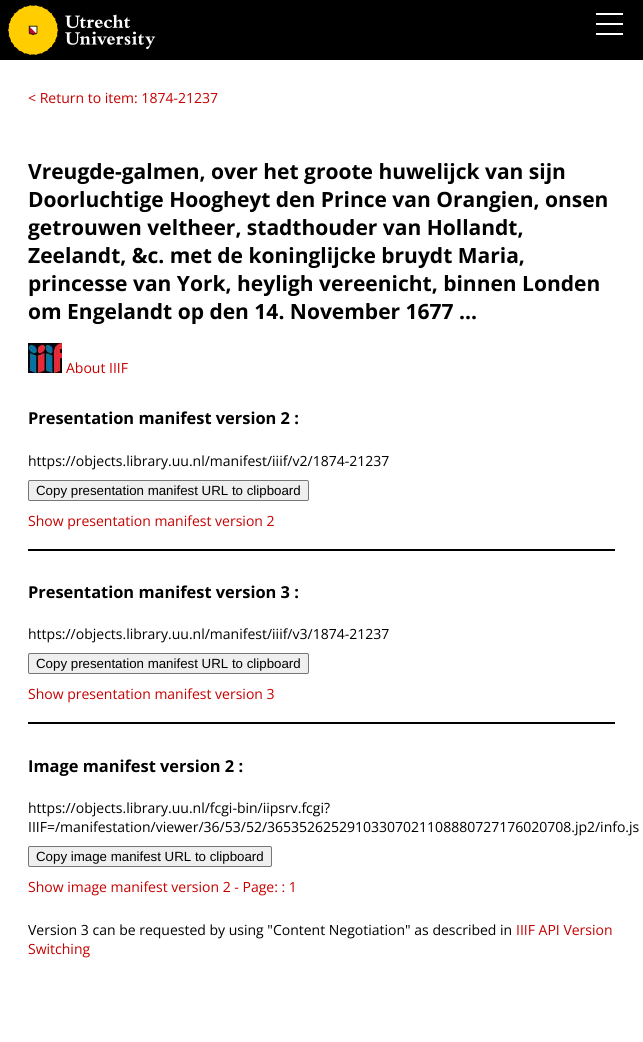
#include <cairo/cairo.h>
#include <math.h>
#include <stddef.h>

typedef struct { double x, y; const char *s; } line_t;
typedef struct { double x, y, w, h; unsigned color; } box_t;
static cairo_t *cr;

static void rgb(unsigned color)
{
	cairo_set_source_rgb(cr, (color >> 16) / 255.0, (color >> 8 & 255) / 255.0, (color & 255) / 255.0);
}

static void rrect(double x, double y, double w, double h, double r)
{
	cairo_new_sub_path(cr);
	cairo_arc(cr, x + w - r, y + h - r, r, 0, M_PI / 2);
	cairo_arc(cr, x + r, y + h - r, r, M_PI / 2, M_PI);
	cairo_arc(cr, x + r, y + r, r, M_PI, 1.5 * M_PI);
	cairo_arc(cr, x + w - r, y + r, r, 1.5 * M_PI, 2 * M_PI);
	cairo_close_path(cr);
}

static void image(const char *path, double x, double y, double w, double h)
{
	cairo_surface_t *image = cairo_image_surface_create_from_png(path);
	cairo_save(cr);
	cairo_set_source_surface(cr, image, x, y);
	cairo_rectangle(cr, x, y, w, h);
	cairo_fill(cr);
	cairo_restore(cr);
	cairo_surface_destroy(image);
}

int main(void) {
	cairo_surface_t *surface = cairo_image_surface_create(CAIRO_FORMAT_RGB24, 643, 1042);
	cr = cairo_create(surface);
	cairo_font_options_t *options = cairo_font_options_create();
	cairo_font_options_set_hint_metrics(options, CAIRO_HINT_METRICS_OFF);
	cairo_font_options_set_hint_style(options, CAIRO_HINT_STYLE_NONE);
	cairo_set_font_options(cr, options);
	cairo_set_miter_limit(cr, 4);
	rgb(0xffffff);
	cairo_paint(cr);
	rgb(0x000000);
	cairo_rectangle(cr, 0, 0, 643, 60);
	cairo_fill(cr);
	image("img/1.png", 8, 5, 148, 50);
	{
		static const box_t items[] = {
			{596, 23, 27, 2, 0xffffff},
			{596, 13, 27, 2, 0xffffff},
			{596, 33, 27, 2, 0xffffff},
		};
		for (size_t i = 0; i < sizeof items / sizeof *items; i++) {
			rgb(items[i].color);
			cairo_rectangle(cr, items[i].x, items[i].y, items[i].w, items[i].h);
			cairo_fill(cr);
		}
	}
	image("img/2.png", 28, 343, 34, 30);
	rgb(0x000000);
	cairo_rectangle(cr, 28, 549, 587, 2);
	cairo_fill(cr);
	rgb(0xefefef);
	rrect(28.5, 480.5, 280, 20, 1.5);
	cairo_fill_preserve(cr);
	rgb(0x767676);
	cairo_set_line_width(cr, 1);
	cairo_stroke(cr);
	rgb(0x000000);
	cairo_rectangle(cr, 28, 722, 587, 2);
	cairo_fill(cr);
	rgb(0xefefef);
	rrect(28.5, 653.5, 280, 20, 1.5);
	cairo_fill_preserve(cr);
	rgb(0x767676);
	cairo_stroke(cr);
	rgb(0xefefef);
	rrect(28.5, 846.5, 243, 20, 1.5);
	cairo_fill_preserve(cr);
	rgb(0x767676);
	cairo_stroke(cr);
	cairo_select_font_face(cr, "Open Sans", CAIRO_FONT_SLANT_NORMAL, CAIRO_FONT_WEIGHT_NORMAL);
	cairo_set_font_size(cr, 14);
	rgb(0xc60000);
	cairo_move_to(cr, 28, 103);
	cairo_show_text(cr, "< Return to item: 1874-21237");
	cairo_select_font_face(cr, "Open Sans", CAIRO_FONT_SLANT_NORMAL, CAIRO_FONT_WEIGHT_BOLD);
	cairo_set_font_size(cr, 21);
	rgb(0x000000);
	{
		static const line_t items[] = {
			{28, 179, "Vreugde-galmen, over het groote huwelijck van sijn"},
			{28, 207, "Doorluchtige Hoogheyt den Prince van Orangien, onsen"},
			{28, 235, "getrouwen veltheer, stadthouder van Hollandt,"},
			{28, 263, "Zeelandt, &c. met de koninglijcke bruydt Maria,"},
			{28, 291, "princesse van York, heyligh vereenicht, binnen Londen"},
			{28, 319, "om Engelandt op den 14. November 1677 ..."},
		};
		for (size_t i = 0; i < sizeof items / sizeof *items; i++) {
			cairo_move_to(cr, items[i].x, items[i].y);
			cairo_show_text(cr, items[i].s);
		}
	}
	cairo_select_font_face(cr, "Open Sans", CAIRO_FONT_SLANT_NORMAL, CAIRO_FONT_WEIGHT_NORMAL);
	cairo_set_font_size(cr, 14);
	rgb(0xc60000);
	cairo_move_to(cr, 66, 373);
	cairo_show_text(cr, "About IIIF");
	cairo_select_font_face(cr, "Open Sans", CAIRO_FONT_SLANT_NORMAL, CAIRO_FONT_WEIGHT_BOLD);
	cairo_set_font_size(cr, 16.4);
	rgb(0x000000);
	cairo_move_to(cr, 28, 424);
	cairo_show_text(cr, "Presentation manifest version 2 :");
	cairo_select_font_face(cr, "Open Sans", CAIRO_FONT_SLANT_NORMAL, CAIRO_FONT_WEIGHT_NORMAL);
	cairo_set_font_size(cr, 14);
	cairo_move_to(cr, 28, 466);
	cairo_show_text(cr, "https://objects.library.uu.nl/manifest/iiif/v2/1874-21237");
	cairo_select_font_face(cr, "Liberation Sans", CAIRO_FONT_SLANT_NORMAL, CAIRO_FONT_WEIGHT_NORMAL);
	cairo_set_font_size(cr, 13.3);
	cairo_move_to(cr, 36, 495);
	cairo_show_text(cr, "Copy presentation manifest URL to clipboard");
	cairo_select_font_face(cr, "Open Sans", CAIRO_FONT_SLANT_NORMAL, CAIRO_FONT_WEIGHT_NORMAL);
	cairo_set_font_size(cr, 14);
	rgb(0xc60000);
	cairo_move_to(cr, 28, 526);
	cairo_show_text(cr, "Show presentation manifest version 2");
	cairo_select_font_face(cr, "Open Sans", CAIRO_FONT_SLANT_NORMAL, CAIRO_FONT_WEIGHT_BOLD);
	cairo_set_font_size(cr, 16.4);
	rgb(0x000000);
	cairo_move_to(cr, 28, 598);
	cairo_show_text(cr, "Presentation manifest version 3 :");
	cairo_select_font_face(cr, "Open Sans", CAIRO_FONT_SLANT_NORMAL, CAIRO_FONT_WEIGHT_NORMAL);
	cairo_set_font_size(cr, 14);
	cairo_move_to(cr, 28, 639);
	cairo_show_text(cr, "https://objects.library.uu.nl/manifest/iiif/v3/1874-21237");
	cairo_select_font_face(cr, "Liberation Sans", CAIRO_FONT_SLANT_NORMAL, CAIRO_FONT_WEIGHT_NORMAL);
	cairo_set_font_size(cr, 13.3);
	cairo_move_to(cr, 36, 668);
	cairo_show_text(cr, "Copy presentation manifest URL to clipboard");
	cairo_select_font_face(cr, "Open Sans", CAIRO_FONT_SLANT_NORMAL, CAIRO_FONT_WEIGHT_NORMAL);
	cairo_set_font_size(cr, 14);
	rgb(0xc60000);
	cairo_move_to(cr, 28, 699);
	cairo_show_text(cr, "Show presentation manifest version 3");
	cairo_select_font_face(cr, "Open Sans", CAIRO_FONT_SLANT_NORMAL, CAIRO_FONT_WEIGHT_BOLD);
	cairo_set_font_size(cr, 16.4);
	rgb(0x000000);
	cairo_move_to(cr, 28, 772);
	cairo_show_text(cr, "Image manifest version 2 :");
	cairo_select_font_face(cr, "Open Sans", CAIRO_FONT_SLANT_NORMAL, CAIRO_FONT_WEIGHT_NORMAL);
	cairo_set_font_size(cr, 14);
	cairo_move_to(cr, 28, 813);
	cairo_show_text(cr, "https://objects.library.uu.nl/fcgi-bin/iipsrv.fcgi?");
	cairo_move_to(cr, 28, 832);
	cairo_show_text(cr, "IIIF=/manifestation/viewer/36/53/52/36535262529103307021108880727176020708.jp2/info.js");
	cairo_select_font_face(cr, "Liberation Sans", CAIRO_FONT_SLANT_NORMAL, CAIRO_FONT_WEIGHT_NORMAL);
	cairo_set_font_size(cr, 13.3);
	cairo_move_to(cr, 36, 861);
	cairo_show_text(cr, "Copy image manifest URL to clipboard");
	cairo_select_font_face(cr, "Open Sans", CAIRO_FONT_SLANT_NORMAL, CAIRO_FONT_WEIGHT_NORMAL);
	cairo_set_font_size(cr, 14);
	rgb(0xc60000);
	cairo_move_to(cr, 28, 892);
	cairo_show_text(cr, "Show image manifest version 2 - Page: : 1");
	rgb(0x000000);
	cairo_move_to(cr, 28, 935);
	cairo_show_text(cr, "Version 3 can be requested by using \"Content Negotiation\" as described in");
	rgb(0xc60000);
	cairo_move_to(cr, 516, 935);
	cairo_show_text(cr, "IIIF API Version");
	cairo_move_to(cr, 28, 954);
	cairo_show_text(cr, "Switching");
	cairo_surface_write_to_png(surface, "page.png");
	cairo_font_options_destroy(options);
	cairo_destroy(cr);
	cairo_surface_destroy(surface);
	return 0;
}
